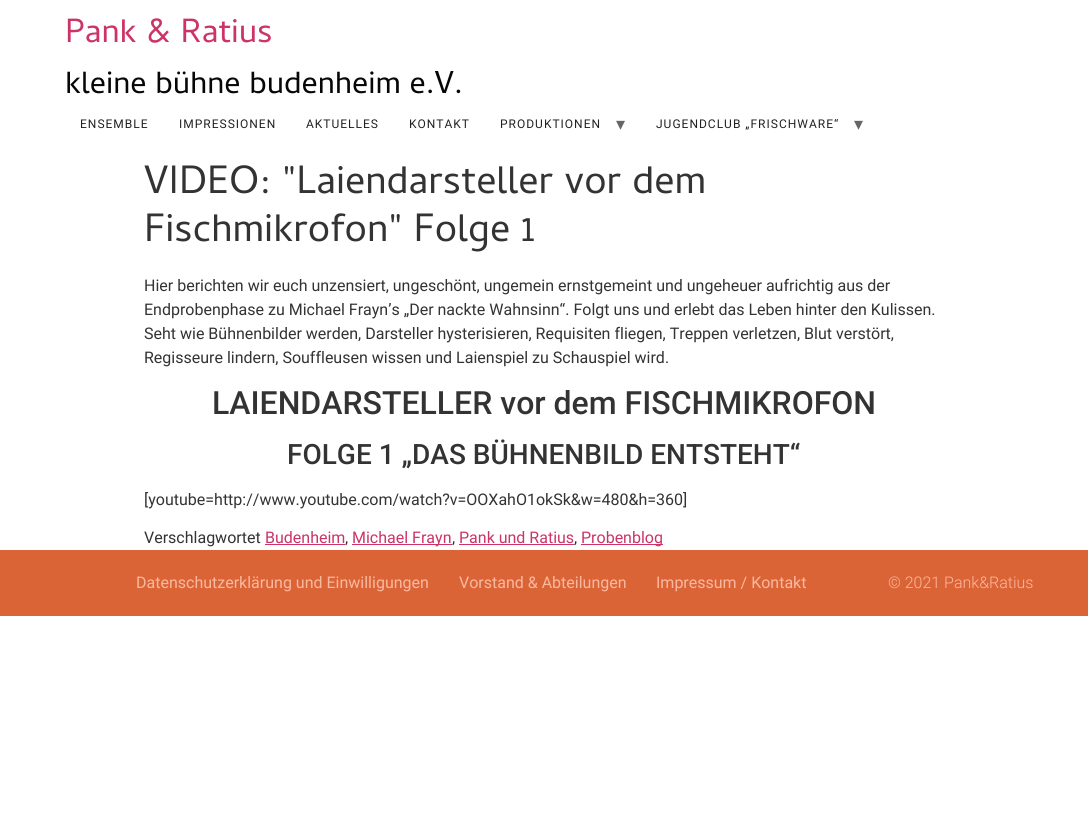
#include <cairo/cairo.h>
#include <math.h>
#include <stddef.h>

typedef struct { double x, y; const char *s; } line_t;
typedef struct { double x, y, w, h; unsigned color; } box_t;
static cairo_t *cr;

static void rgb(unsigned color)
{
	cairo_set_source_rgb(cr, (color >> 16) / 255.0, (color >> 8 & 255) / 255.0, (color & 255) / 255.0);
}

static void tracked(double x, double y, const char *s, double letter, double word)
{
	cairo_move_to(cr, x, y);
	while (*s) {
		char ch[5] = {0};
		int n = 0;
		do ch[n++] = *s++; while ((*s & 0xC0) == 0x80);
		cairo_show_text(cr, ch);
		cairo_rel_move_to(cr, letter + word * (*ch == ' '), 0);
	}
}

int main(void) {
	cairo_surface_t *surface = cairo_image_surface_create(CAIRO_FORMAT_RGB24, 1088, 814);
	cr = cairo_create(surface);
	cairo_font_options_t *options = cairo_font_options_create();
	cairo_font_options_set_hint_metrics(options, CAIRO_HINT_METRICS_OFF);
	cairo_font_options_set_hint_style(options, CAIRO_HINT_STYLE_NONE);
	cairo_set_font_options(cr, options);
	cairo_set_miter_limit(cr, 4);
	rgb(0xffffff);
	cairo_paint(cr);
	{
		static const box_t items[] = {
			{265, 544, 80, 1, 0xcc3366},
			{352, 544, 100, 1, 0xcc3366},
			{459, 544, 115, 1, 0xcc3366},
			{581, 544, 82, 1, 0xcc3366},
			{0, 550, 1088, 66, 0xdb6437},
		};
		for (size_t i = 0; i < sizeof items / sizeof *items; i++) {
			rgb(items[i].color);
			cairo_rectangle(cr, items[i].x, items[i].y, items[i].w, items[i].h);
			cairo_fill(cr);
		}
	}
	cairo_select_font_face(cr, "Cambay", CAIRO_FONT_SLANT_NORMAL, CAIRO_FONT_WEIGHT_NORMAL);
	cairo_set_font_size(cr, 34);
	rgb(0xcc3366);
	cairo_move_to(cr, 65, 42);
	cairo_show_text(cr, "Pank & Ratius");
	cairo_set_font_size(cr, 32);
	rgb(0x070707);
	cairo_move_to(cr, 65, 93);
	cairo_show_text(cr, "kleine bühne budenheim e.V.");
	cairo_select_font_face(cr, "Roboto", CAIRO_FONT_SLANT_NORMAL, CAIRO_FONT_WEIGHT_NORMAL);
	cairo_set_font_size(cr, 12);
	rgb(0x232121);
	{
		static const line_t items[] = {
			{80, 128, "ENSEMBLE"},
			{179, 128, "IMPRESSIONEN"},
			{306, 128, "AKTUELLES"},
			{409, 128, "KONTAKT"},
			{500, 128, "PRODUKTIONEN"},
		};
		for (size_t i = 0; i < sizeof items / sizeof *items; i++) {
			tracked(items[i].x, items[i].y, items[i].s, 1, 0);
		}
	}
	cairo_select_font_face(cr, "DejaVu Sans", CAIRO_FONT_SLANT_NORMAL, CAIRO_FONT_WEIGHT_NORMAL);
	cairo_set_font_size(cr, 18);
	rgb(0x666666);
	tracked(616, 130, "▾", 1, 0);
	cairo_select_font_face(cr, "Roboto", CAIRO_FONT_SLANT_NORMAL, CAIRO_FONT_WEIGHT_NORMAL);
	cairo_set_font_size(cr, 12);
	rgb(0x232121);
	tracked(656, 128, "JUGENDCLUB „FRISCHWARE“", 1, 0);
	cairo_select_font_face(cr, "DejaVu Sans", CAIRO_FONT_SLANT_NORMAL, CAIRO_FONT_WEIGHT_NORMAL);
	cairo_set_font_size(cr, 18);
	rgb(0x666666);
	tracked(854, 130, "▾", 1, 0);
	cairo_select_font_face(cr, "Cambay", CAIRO_FONT_SLANT_NORMAL, CAIRO_FONT_WEIGHT_NORMAL);
	cairo_set_font_size(cr, 40);
	rgb(0x333333);
	cairo_move_to(cr, 144, 193);
	cairo_show_text(cr, "VIDEO: \"Laiendarsteller vor dem");
	cairo_move_to(cr, 144, 241);
	cairo_show_text(cr, "Fischmikrofon\" Folge 1");
	cairo_select_font_face(cr, "Roboto", CAIRO_FONT_SLANT_NORMAL, CAIRO_FONT_WEIGHT_NORMAL);
	cairo_set_font_size(cr, 16);
	{
		static const line_t items[] = {
			{144, 291, "Hier berichten wir euch unzensiert, ungeschönt, ungemein ernstgemeint und ungeheuer aufrichtig aus der"},
			{144, 315, "Endprobenphase zu Michael Frayn’s „Der nackte Wahnsinn“. Folgt uns und erlebt das Leben hinter den Kulissen."},
			{144, 339, "Seht wie Bühnenbilder werden, Darsteller hysterisieren, Requisiten fliegen, Treppen verletzen, Blut verstört,"},
			{144, 363, "Regisseure lindern, Souffleusen wissen und Laienspiel zu Schauspiel wird."},
		};
		for (size_t i = 0; i < sizeof items / sizeof *items; i++) {
			cairo_move_to(cr, items[i].x, items[i].y);
			cairo_show_text(cr, items[i].s);
		}
	}
	cairo_select_font_face(cr, "Roboto Medium", CAIRO_FONT_SLANT_NORMAL, CAIRO_FONT_WEIGHT_NORMAL);
	cairo_set_font_size(cr, 32);
	cairo_move_to(cr, 212, 414);
	cairo_show_text(cr, "LAIENDARSTELLER vor dem FISCHMIKROFON");
	cairo_set_font_size(cr, 28);
	cairo_move_to(cr, 287, 464);
	cairo_show_text(cr, "FOLGE 1 „DAS BÜHNENBILD ENTSTEHT“");
	cairo_select_font_face(cr, "Roboto", CAIRO_FONT_SLANT_NORMAL, CAIRO_FONT_WEIGHT_NORMAL);
	cairo_set_font_size(cr, 16);
	cairo_move_to(cr, 144, 505);
	cairo_show_text(cr, "[youtube=http://www.youtube.com/watch?v=OOXahO1okSk&w=480&h=360]");
	cairo_move_to(cr, 144, 543);
	cairo_show_text(cr, "Verschlagwortet");
	rgb(0xcc3366);
	cairo_move_to(cr, 265, 543);
	cairo_show_text(cr, "Budenheim");
	rgb(0x333333);
	cairo_move_to(cr, 345, 543);
	cairo_show_text(cr, ",");
	rgb(0xcc3366);
	cairo_move_to(cr, 352, 543);
	cairo_show_text(cr, "Michael Frayn");
	rgb(0x333333);
	cairo_move_to(cr, 452, 543);
	cairo_show_text(cr, ",");
	rgb(0xcc3366);
	cairo_move_to(cr, 459, 543);
	cairo_show_text(cr, "Pank und Ratius");
	rgb(0x333333);
	cairo_move_to(cr, 574, 543);
	cairo_show_text(cr, ",");
	rgb(0xcc3366);
	cairo_move_to(cr, 581, 543);
	cairo_show_text(cr, "Probenblog");
	rgb(0xfab89f);
	{
		static const line_t items[] = {
			{136, 588, "Datenschutzerklärung und Einwilligungen"},
			{459, 588, "Vorstand & Abteilungen"},
			{656, 588, "Impressum / Kontakt"},
		};
		for (size_t i = 0; i < sizeof items / sizeof *items; i++) {
			cairo_move_to(cr, items[i].x, items[i].y);
			cairo_show_text(cr, items[i].s);
		}
	}
	cairo_select_font_face(cr, "Roboto Light", CAIRO_FONT_SLANT_NORMAL, CAIRO_FONT_WEIGHT_NORMAL);
	cairo_move_to(cr, 888, 588);
	cairo_show_text(cr, "© 2021 Pank&Ratius");
	cairo_surface_write_to_png(surface, "page.png");
	cairo_font_options_destroy(options);
	cairo_destroy(cr);
	cairo_surface_destroy(surface);
	return 0;
}
